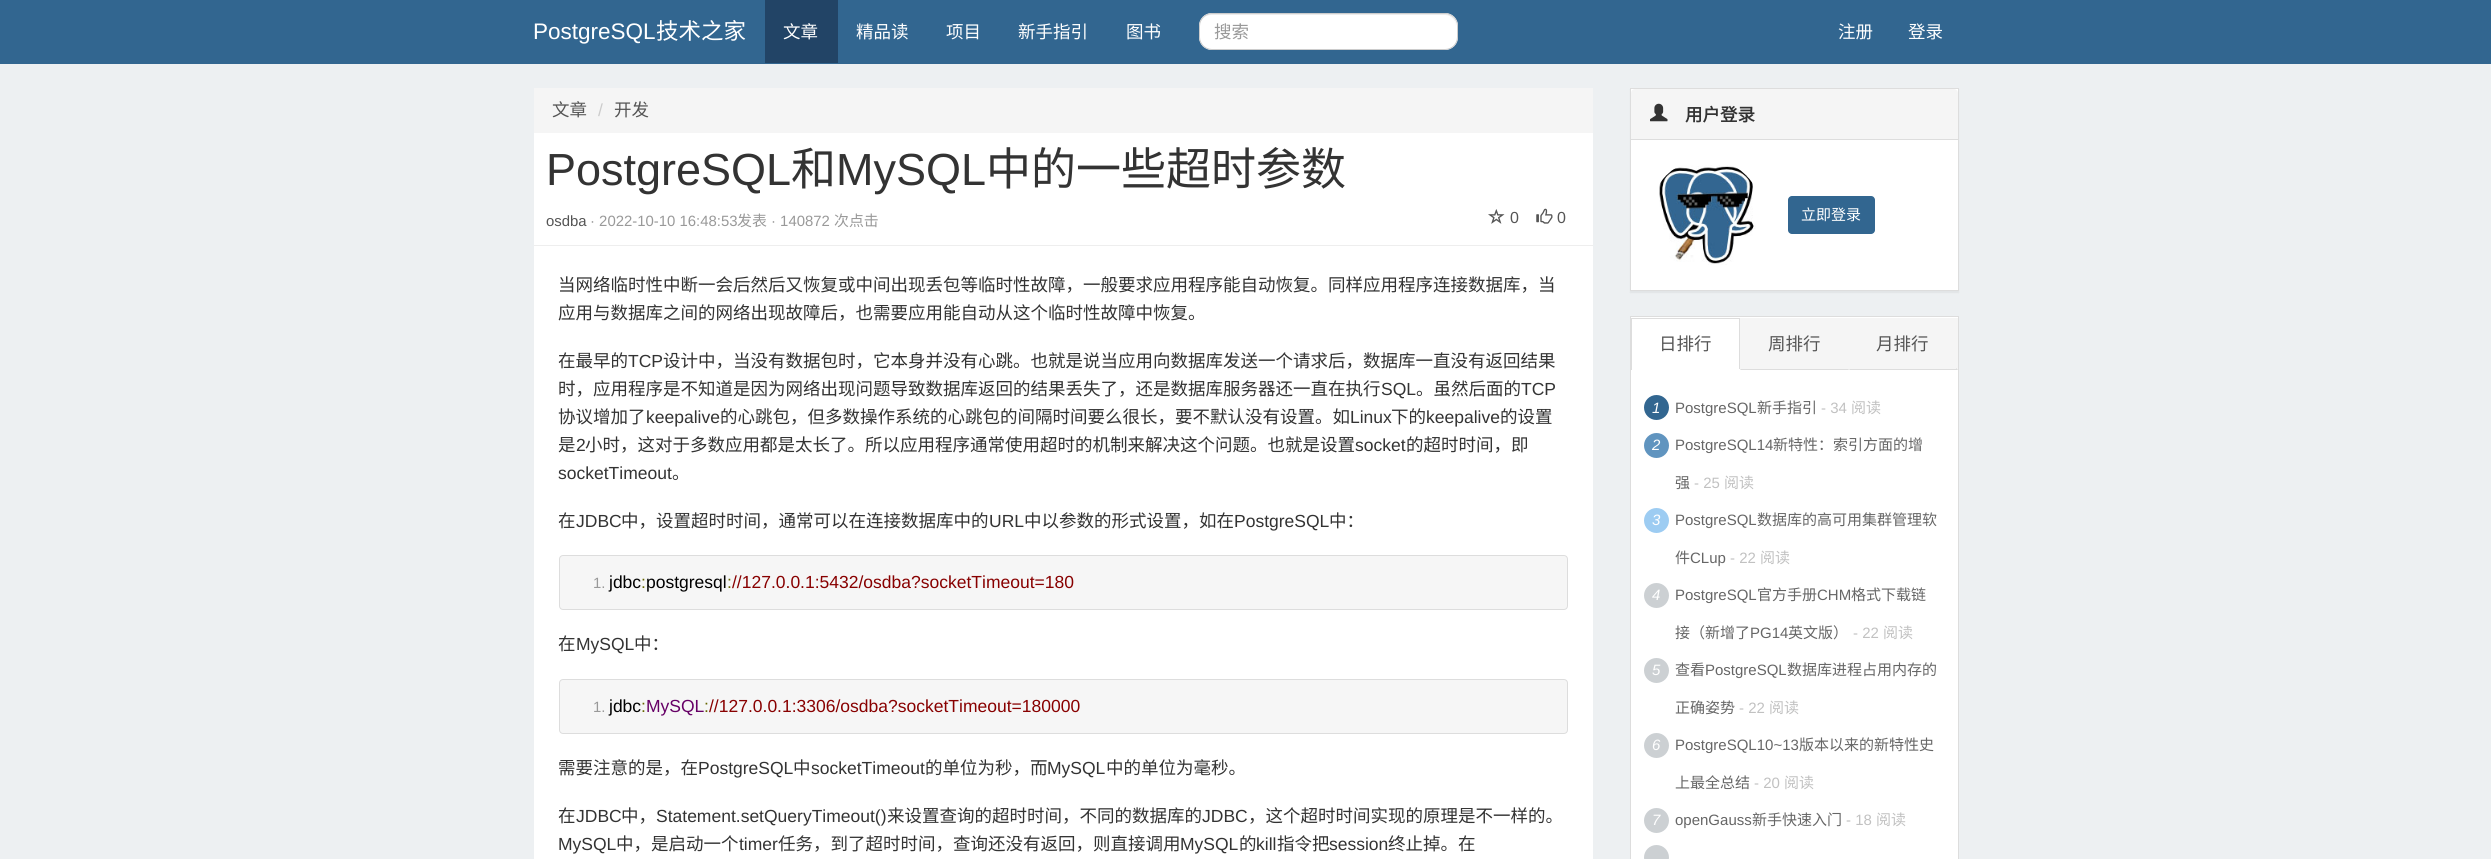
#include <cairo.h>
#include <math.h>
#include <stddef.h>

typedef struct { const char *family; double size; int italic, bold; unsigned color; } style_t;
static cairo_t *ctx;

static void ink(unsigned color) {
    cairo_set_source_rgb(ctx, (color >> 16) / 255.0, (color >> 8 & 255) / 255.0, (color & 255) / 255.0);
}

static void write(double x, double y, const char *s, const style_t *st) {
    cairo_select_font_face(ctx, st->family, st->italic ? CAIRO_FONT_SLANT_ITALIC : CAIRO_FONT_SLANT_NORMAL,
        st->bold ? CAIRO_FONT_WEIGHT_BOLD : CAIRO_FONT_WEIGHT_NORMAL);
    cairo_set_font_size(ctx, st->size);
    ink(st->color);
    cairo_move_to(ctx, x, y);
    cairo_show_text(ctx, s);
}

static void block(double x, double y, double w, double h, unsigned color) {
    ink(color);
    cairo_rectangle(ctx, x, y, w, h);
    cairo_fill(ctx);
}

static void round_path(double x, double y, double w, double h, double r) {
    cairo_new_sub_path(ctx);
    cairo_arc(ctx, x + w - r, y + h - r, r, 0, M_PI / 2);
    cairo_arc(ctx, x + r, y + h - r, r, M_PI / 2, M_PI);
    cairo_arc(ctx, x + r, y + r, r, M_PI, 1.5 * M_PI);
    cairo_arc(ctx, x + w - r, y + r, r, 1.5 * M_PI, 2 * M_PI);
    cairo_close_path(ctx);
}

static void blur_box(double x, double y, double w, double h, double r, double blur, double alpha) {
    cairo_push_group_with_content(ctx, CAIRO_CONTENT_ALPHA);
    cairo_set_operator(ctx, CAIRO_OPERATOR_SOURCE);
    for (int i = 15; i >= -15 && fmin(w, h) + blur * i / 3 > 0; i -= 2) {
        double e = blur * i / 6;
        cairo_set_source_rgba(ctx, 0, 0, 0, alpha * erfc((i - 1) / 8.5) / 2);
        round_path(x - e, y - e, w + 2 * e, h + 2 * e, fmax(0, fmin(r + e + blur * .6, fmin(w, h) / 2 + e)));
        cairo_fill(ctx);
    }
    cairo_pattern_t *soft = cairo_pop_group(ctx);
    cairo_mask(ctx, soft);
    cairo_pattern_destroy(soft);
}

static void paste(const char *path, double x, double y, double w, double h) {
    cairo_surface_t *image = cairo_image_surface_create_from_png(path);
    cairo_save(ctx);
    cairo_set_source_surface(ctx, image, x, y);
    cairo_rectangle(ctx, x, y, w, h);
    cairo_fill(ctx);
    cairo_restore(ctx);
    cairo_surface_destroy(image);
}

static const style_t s1 = {"Liberation Sans", 22.5, 0, 0, 0xffffff};
static const style_t s2 = {"Noto Sans CJK SC", 22.5, 0, 0, 0xffffff};
static const style_t s3 = {"Noto Sans CJK SC", 17.5, 0, 0, 0xffffff};
static const style_t s4 = {"Noto Sans CJK SC", 17.5, 0, 0, 0x999999};
static const style_t s5 = {"Noto Sans CJK SC", 17.5, 0, 0, 0x555555};
static const style_t s6 = {"Liberation Sans", 17.5, 0, 0, 0xcccccc};
static const style_t s7 = {"Liberation Sans", 45, 0, 0, 0x333333};
static const style_t s8 = {"Noto Sans CJK SC", 45, 0, 0, 0x333333};
static const style_t s9 = {"Liberation Sans", 14.9, 0, 0, 0x555555};
static const style_t s10 = {"Liberation Sans", 14.9, 0, 0, 0x999999};
static const style_t s11 = {"Noto Sans CJK SC", 14.9, 0, 0, 0x999999};
static const style_t s12 = {"Liberation Sans", 16, 0, 0, 0x555555};
static const style_t s13 = {"Noto Sans CJK SC", 17.5, 0, 0, 0x333333};
static const style_t s14 = {"Liberation Sans", 17.5, 0, 0, 0x333333};
static const style_t s15 = {"Liberation Sans", 17.5, 0, 0, 0x000000};
static const style_t s16 = {"Liberation Sans", 17.5, 0, 0, 0x880000};
static const style_t s17 = {"Liberation Sans", 17.5, 0, 0, 0x666600};
static const style_t s18 = {"Liberation Sans", 17.5, 0, 0, 0x660066};
static const style_t s19 = {"Noto Sans CJK SC", 17.5, 0, 1, 0x333333};
static const style_t s20 = {"Noto Sans CJK SC", 15, 0, 0, 0xffffff};
static const style_t s21 = {"Liberation Sans", 15, 1, 0, 0xffffff};
static const style_t s22 = {"Liberation Sans", 15, 0, 0, 0x666666};
static const style_t s23 = {"Noto Sans CJK SC", 15, 0, 0, 0x666666};
static const style_t s24 = {"Liberation Sans", 15, 0, 0, 0xc1c1c1};
static const style_t s25 = {"Noto Sans CJK SC", 15, 0, 0, 0xc1c1c1};

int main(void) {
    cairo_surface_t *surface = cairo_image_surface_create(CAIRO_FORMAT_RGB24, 2491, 859);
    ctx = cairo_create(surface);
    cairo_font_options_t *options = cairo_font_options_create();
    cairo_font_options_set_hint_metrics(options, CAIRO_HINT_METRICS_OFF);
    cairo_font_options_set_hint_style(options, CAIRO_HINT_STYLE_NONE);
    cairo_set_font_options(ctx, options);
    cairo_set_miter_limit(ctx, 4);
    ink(0xedf0f2);
    cairo_paint(ctx);
    block(0, 0, 2491, 64, 0x326690);
    write(533, 39, "PostgreSQL", &s1);
    write(656, 39, "技术之家", &s2);
    block(765, 0, 73, 63, 0x224466);
    write(783, 38, "文章", &s3);
    write(856, 38, "精品读", &s3);
    write(946, 38, "项目", &s3);
    write(1018, 38, "新手指引", &s3);
    write(1126, 38, "图书", &s3);
    round_path(1199, 13, 259, 37, 13);
    cairo_fill(ctx);
    ink(0xececec);
    cairo_new_path(ctx);
    cairo_move_to(ctx, 1211, 15);
    cairo_line_to(ctx, 1445, 15);
    cairo_curve_to(ctx, 1451, 15, 1456, 20, 1456, 26);
    cairo_line_to(ctx, 1456, 25);
    cairo_curve_to(ctx, 1456, 19, 1451, 14, 1445, 14);
    cairo_line_to(ctx, 1211, 14);
    cairo_curve_to(ctx, 1205, 14, 1200, 19, 1200, 25);
    cairo_line_to(ctx, 1200, 26);
    cairo_curve_to(ctx, 1200, 20, 1205, 15, 1211, 15);
    cairo_close_path(ctx);
    cairo_fill(ctx);
    round_path(1199.5, 13.5, 258, 36, 12.5);
    ink(0xcccccc);
    cairo_set_line_width(ctx, 1);
    cairo_stroke(ctx);
    write(1214, 38, "搜索", &s4);
    write(1838, 38, "注册", &s3);
    write(1908, 38, "登录", &s3);
    block(534, 88, 1059, 45, 0xf5f5f5);
    write(552, 116, "文章", &s5);
    write(598, 116, "/", &s6);
    write(614, 116, "开发", &s5);
    block(534, 133, 1059, 726, 0xffffff);
    block(534, 245, 1059, 1, 0xeeeeee);
    write(546, 185, "PostgreSQL", &s7);
    write(791, 185, "和", &s8);
    write(836, 185, "MySQL", &s7);
    write(986, 185, "中的一些超时参数", &s8);
    write(546, 226, "osdba", &s9);
    write(590, 226, "· 2022-10-10 16:48:53", &s10);
    write(737, 226, "发表", &s11);
    write(771, 226, "· 140872", &s10);
    write(834, 226, "次点击", &s11);
    paste("pic1.png", 1488, 209, 17, 15);
    write(1510, 223, "0", &s12);
    paste("pic2.png", 1536, 208, 17, 16);
    write(1557, 223, "0", &s12);
    write(558, 291, "当网络临时性中断一会后然后又恢复或中间出现丢包等临时性故障，一般要求应用程序能自动恢复。同样应用程序连接数据库，当", &s13);
    write(558, 319, "应用与数据库之间的网络出现故障后，也需要应用能自动从这个临时性故障中恢复。", &s13);
    write(558, 367, "在最早的", &s13);
    write(628, 367, "TCP", &s14);
    write(663, 367, "设计中，当没有数据包时，它本身并没有心跳。也就是说当应用向数据库发送一个请求后，数据库一直没有返回结果", &s13);
    write(558, 395, "时，应用程序是不知道是因为网络出现问题导致数据库返回的结果丢失了，还是数据库服务器还一直在执行", &s13);
    write(1381, 395, "SQL", &s14);
    write(1416, 395, "。虽然后面的", &s13);
    write(1521, 395, "TCP", &s14);
    write(558, 423, "协议增加了", &s13);
    write(646, 423, "keepalive", &s14);
    write(720, 423, "的心跳包，但多数操作系统的心跳包的间隔时间要么很长，要不默认没有设置。如", &s13);
    write(1350, 423, "Linux", &s14);
    write(1391, 423, "下的", &s13);
    write(1426, 423, "keepalive", &s14);
    write(1500, 423, "的设置", &s13);
    write(558, 451, "是", &s13);
    write(576, 451, "2", &s14);
    write(585, 451, "小时，这对于多数应用都是太长了。所以应用程序通常使用超时的机制来解决这个问题。也就是设置", &s13);
    write(1355, 451, "socket", &s14);
    write(1406, 451, "的超时时间，即", &s13);
    write(558, 479, "socketTimeout", &s14);
    write(672, 479, "。", &s13);
    write(558, 527, "在", &s13);
    write(576, 527, "JDBC", &s14);
    write(621, 527, "中，设置超时时间，通常可以在连接数据库中的", &s13);
    write(989, 527, "URL", &s14);
    write(1024, 527, "中以参数的形式设置，如在", &s13);
    write(1234, 527, "PostgreSQL", &s14);
    write(1329, 527, "中：", &s13);
    ink(0xf6f6f6);
    round_path(559.5, 555.5, 1008, 54, 3.5);
    cairo_fill_preserve(ctx);
    ink(0xdddddd);
    cairo_stroke(ctx);
    write(593, 588, "1.", &s10);
    write(609, 588, "jdbc postgresql", &s15);
    write(732, 588, "//127.0.0.1:5432/osdba?socketTimeout=180", &s16);
    write(641, 588, ":", &s17);
    write(727, 588, ":", &s17);
    write(558, 650, "在", &s13);
    write(576, 650, "MySQL", &s14);
    write(634, 650, "中：", &s13);
    ink(0xf6f6f6);
    round_path(559.5, 679.5, 1008, 54, 3.5);
    cairo_fill_preserve(ctx);
    ink(0xdddddd);
    cairo_stroke(ctx);
    write(593, 712, "1.", &s10);
    write(609, 712, "jdbc", &s15);
    write(641, 712, ":", &s17);
    write(646, 712, "MySQL", &s18);
    write(704, 712, ":", &s17);
    write(709, 712, "//127.0.0.1:3306/osdba?socketTimeout=180000", &s16);
    write(558, 774, "需要注意的是，在", &s13);
    write(698, 774, "PostgreSQL", &s14);
    write(793, 774, "中", &s13);
    write(811, 774, "socketTimeout", &s14);
    write(925, 774, "的单位为秒，而", &s13);
    write(1047, 774, "MySQL", &s14);
    write(1106, 774, "中的单位为毫秒。", &s13);
    write(558, 822, "在", &s13);
    write(576, 822, "JDBC", &s14);
    write(621, 822, "中，", &s13);
    write(656, 822, "Statement.setQueryTimeout()", &s14);
    write(887, 822, "来设置查询的超时时间，不同的数据库的", &s13);
    write(1202, 822, "JDBC", &s14);
    write(1248, 822, "，这个超时时间实现的原理是不一样的。", &s13);
    write(558, 850, "MySQL", &s14);
    write(616, 850, "中，是启动一个", &s13);
    write(739, 850, "timer", &s14);
    write(778, 850, "任务，到了超时时间，查询还没有返回，则直接调用", &s13);
    write(1180, 850, "MySQL", &s14);
    write(1239, 850, "的", &s13);
    write(1256, 850, "kill", &s14);
    write(1277, 850, "指令把", &s13);
    write(1329, 850, "session", &s14);
    write(1388, 850, "终止掉。在", &s13);
    ink(0x000000);
    blur_box(1630, 89, 329, 204, 0, 0.5, 0.05);
    ink(0xffffff);
    cairo_rectangle(ctx, 1630.5, 88.5, 328, 202);
    cairo_fill_preserve(ctx);
    ink(0xdddddd);
    cairo_stroke(ctx);
    ink(0xf5f5f5);
    cairo_new_path(ctx);
    cairo_move_to(ctx, 1635, 89);
    cairo_line_to(ctx, 1954, 89);
    cairo_curve_to(ctx, 1956, 89, 1958, 91, 1958, 93);
    cairo_line_to(ctx, 1958, 140);
    cairo_line_to(ctx, 1631, 140);
    cairo_line_to(ctx, 1631, 93);
    cairo_curve_to(ctx, 1631, 91, 1633, 89, 1635, 89);
    cairo_close_path(ctx);
    cairo_fill(ctx);
    block(1631, 139, 327, 1, 0xdddddd);
    paste("pic3.png", 1650, 103, 18, 19);
    write(1685, 121, "用户登录", &s19);
    paste("pic4.png", 1659, 165, 97, 100);
    ink(0x326690);
    round_path(1788, 196, 87, 38, 4);
    cairo_fill(ctx);
    write(1801, 220, "立即登录", &s20);
    cairo_rectangle(ctx, 1630.5, 316.5, 328, 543);
    cairo_fill_preserve(ctx);
    ink(0xdddddd);
    cairo_stroke(ctx);
    block(1740, 318, 218, 52, 0xf5f5f5);
    block(1631, 318, 109, 1, 0xdddddd);
    block(1739, 318, 1, 52, 0xdddddd);
    block(1739, 369, 1, 1, 0xffffff);
    block(1631, 318, 1, 52, 0xdddddd);
    write(1659, 350, "日排行", &s5);
    ink(0xdddddd);
    cairo_new_path(ctx);
    cairo_move_to(ctx, 1849, 370);
    cairo_line_to(ctx, 1848, 369);
    cairo_line_to(ctx, 1741, 369);
    cairo_line_to(ctx, 1740, 370);
    cairo_close_path(ctx);
    cairo_fill(ctx);
    write(1768, 350, "周排行", &s5);
    ink(0xdddddd);
    cairo_new_path(ctx);
    cairo_move_to(ctx, 1958, 370);
    cairo_line_to(ctx, 1956, 368);
    cairo_line_to(ctx, 1956, 369);
    cairo_line_to(ctx, 1850, 369);
    cairo_line_to(ctx, 1849, 370);
    cairo_close_path(ctx);
    cairo_fill(ctx);
    write(1876, 350, "月排行", &s5);
    ink(0x326690);
    cairo_new_path(ctx);
    cairo_arc(ctx, 1656.5, 407.5, 12.5, 0, 2 * M_PI);
    cairo_fill(ctx);
    write(1652, 413, "1", &s21);
    write(1675, 413, "PostgreSQL", &s22);
    write(1757, 413, "新手指引", &s23);
    write(1821, 413, "- 34", &s24);
    write(1851, 413, "阅读", &s25);
    ink(0x6094bf);
    cairo_new_path(ctx);
    cairo_arc(ctx, 1656.5, 445.5, 12.5, 0, 2 * M_PI);
    cairo_fill(ctx);
    write(1652, 450, "2", &s21);
    write(1675, 450, "PostgreSQL14", &s22);
    write(1773, 450, "新特性：索引方面的增", &s23);
    write(1675, 488, "强", &s23);
    write(1694, 488, "- 25", &s24);
    write(1724, 488, "阅读", &s25);
    ink(0x9dccf2);
    cairo_new_path(ctx);
    cairo_arc(ctx, 1656.5, 520.5, 12.5, 0, 2 * M_PI);
    cairo_fill(ctx);
    write(1652, 525, "3", &s21);
    write(1675, 525, "PostgreSQL", &s22);
    write(1757, 525, "数据库的高可用集群管理软", &s23);
    write(1675, 563, "件", &s23);
    write(1690, 563, "CLup", &s22);
    write(1730, 563, "- 22", &s24);
    write(1760, 563, "阅读", &s25);
    ink(0xccd0d3);
    cairo_new_path(ctx);
    cairo_arc(ctx, 1656.5, 595.5, 12.5, 0, 2 * M_PI);
    cairo_fill(ctx);
    write(1652, 600, "4", &s21);
    write(1675, 600, "PostgreSQL", &s22);
    write(1757, 600, "官方手册", &s23);
    write(1817, 600, "CHM", &s22);
    write(1851, 600, "格式下载链", &s23);
    write(1675, 638, "接（新增了", &s23);
    write(1750, 638, "PG14", &s22);
    write(1788, 638, "英文版）", &s23);
    write(1853, 638, "- 22", &s24);
    write(1883, 638, "阅读", &s25);
    ink(0xccd0d3);
    cairo_new_path(ctx);
    cairo_arc(ctx, 1656.5, 670.5, 12.5, 0, 2 * M_PI);
    cairo_fill(ctx);
    write(1652, 675, "5", &s21);
    write(1675, 675, "查看", &s23);
    write(1705, 675, "PostgreSQL", &s22);
    write(1787, 675, "数据库进程占用内存的", &s23);
    write(1675, 713, "正确姿势", &s23);
    write(1739, 713, "- 22", &s24);
    write(1769, 713, "阅读", &s25);
    ink(0xccd0d3);
    cairo_new_path(ctx);
    cairo_arc(ctx, 1656.5, 745.5, 12.5, 0, 2 * M_PI);
    cairo_fill(ctx);
    write(1652, 750, "6", &s21);
    write(1675, 750, "PostgreSQL10~13", &s22);
    write(1799, 750, "版本以来的新特性史", &s23);
    write(1675, 788, "上最全总结", &s23);
    write(1754, 788, "- 20", &s24);
    write(1784, 788, "阅读", &s25);
    ink(0xccd0d3);
    cairo_new_path(ctx);
    cairo_arc(ctx, 1656.5, 820.5, 12.5, 0, 2 * M_PI);
    cairo_fill(ctx);
    write(1652, 825, "7", &s21);
    write(1675, 825, "openGauss", &s22);
    write(1752, 825, "新手快速入门", &s23);
    write(1846, 825, "- 18", &s24);
    write(1876, 825, "阅读", &s25);
    ink(0xccd0d3);
    cairo_new_path(ctx);
    cairo_arc(ctx, 1656.5, 857.5, 12.5, 0, 2 * M_PI);
    cairo_fill(ctx);
    cairo_surface_write_to_png(surface, "screenshot.png");
    cairo_font_options_destroy(options);
    cairo_destroy(ctx);
    cairo_surface_destroy(surface);
    return 0;
}
